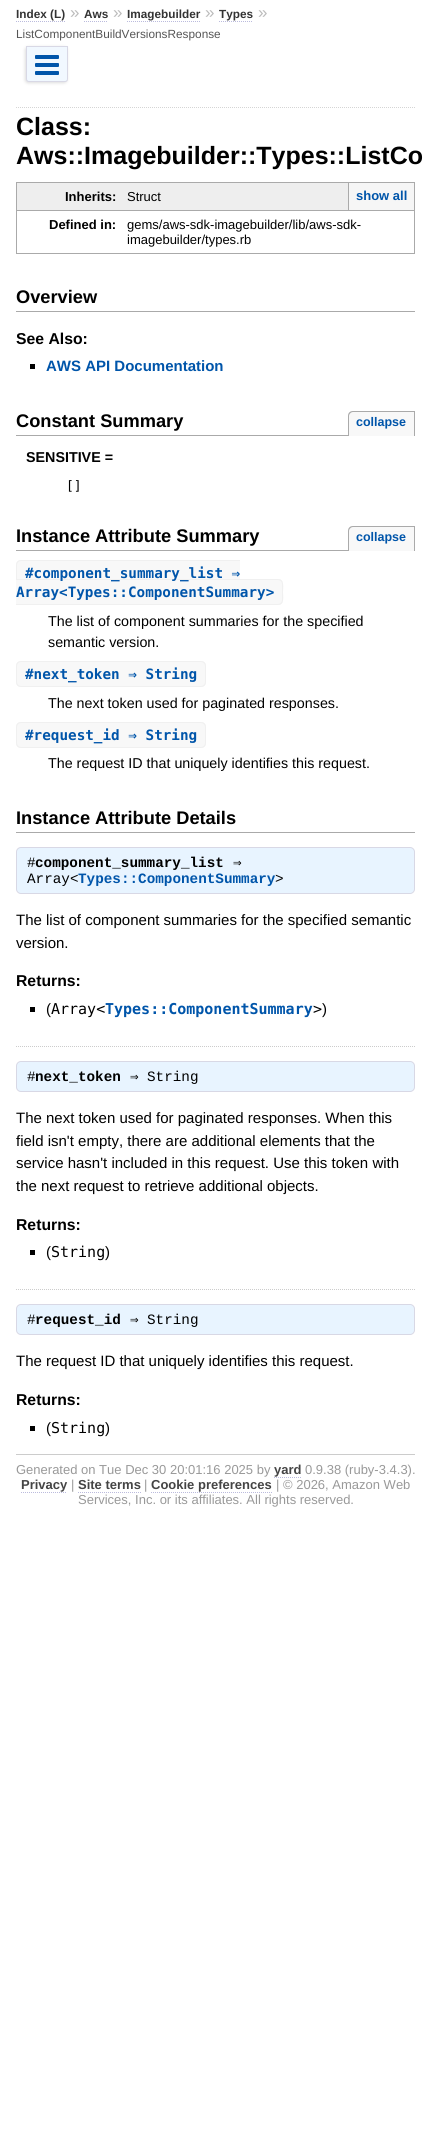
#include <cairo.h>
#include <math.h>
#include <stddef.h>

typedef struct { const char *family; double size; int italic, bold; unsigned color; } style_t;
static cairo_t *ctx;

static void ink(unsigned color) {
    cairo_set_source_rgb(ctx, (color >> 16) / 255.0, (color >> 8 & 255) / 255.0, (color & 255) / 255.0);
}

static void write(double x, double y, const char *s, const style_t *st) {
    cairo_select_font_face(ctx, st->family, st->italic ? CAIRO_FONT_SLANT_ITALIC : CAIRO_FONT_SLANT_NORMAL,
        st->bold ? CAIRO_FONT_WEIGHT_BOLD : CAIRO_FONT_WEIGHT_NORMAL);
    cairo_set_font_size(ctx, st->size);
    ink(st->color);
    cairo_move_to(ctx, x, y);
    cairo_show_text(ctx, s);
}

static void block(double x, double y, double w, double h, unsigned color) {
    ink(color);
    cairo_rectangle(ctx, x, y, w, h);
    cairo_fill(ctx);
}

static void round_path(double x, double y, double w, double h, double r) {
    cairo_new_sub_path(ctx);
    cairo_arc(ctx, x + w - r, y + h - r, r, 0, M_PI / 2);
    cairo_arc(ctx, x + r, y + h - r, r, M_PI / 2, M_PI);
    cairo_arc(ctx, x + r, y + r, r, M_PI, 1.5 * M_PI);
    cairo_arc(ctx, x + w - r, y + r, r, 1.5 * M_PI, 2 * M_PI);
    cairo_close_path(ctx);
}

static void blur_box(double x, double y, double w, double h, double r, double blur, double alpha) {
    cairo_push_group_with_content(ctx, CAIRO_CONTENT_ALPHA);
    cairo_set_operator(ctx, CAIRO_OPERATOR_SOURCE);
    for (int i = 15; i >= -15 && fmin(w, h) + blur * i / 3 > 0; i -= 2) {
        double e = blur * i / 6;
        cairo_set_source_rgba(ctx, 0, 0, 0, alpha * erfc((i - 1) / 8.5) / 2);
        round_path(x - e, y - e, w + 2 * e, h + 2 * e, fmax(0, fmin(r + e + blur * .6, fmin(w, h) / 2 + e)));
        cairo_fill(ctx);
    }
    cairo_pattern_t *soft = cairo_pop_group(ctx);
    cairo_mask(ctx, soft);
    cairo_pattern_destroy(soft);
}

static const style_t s1 = {"Liberation Sans", 11.8, 0, 1, 0x333333};
static const style_t s2 = {"Liberation Sans", 17, 0, 0, 0xbbbbbb};
static const style_t s3 = {"Liberation Sans", 11.8, 0, 0, 0x555555};
static const style_t s4 = {"Liberation Sans", 25, 0, 1, 0x000000};
static const style_t s5 = {"Liberation Sans", 13, 0, 1, 0x000000};
static const style_t s6 = {"Liberation Sans", 13, 0, 0, 0x000000};
static const style_t s7 = {"Liberation Sans", 13, 0, 1, 0x0055aa};
static const style_t s8 = {"Liberation Sans", 18.25, 0, 1, 0x000000};
static const style_t s9 = {"Liberation Sans", 15.75, 0, 1, 0x000000};
static const style_t s10 = {"Liberation Sans", 15, 0, 1, 0x0055aa};
static const style_t s11 = {"Liberation Sans", 12.5, 0, 1, 0x0055aa};
static const style_t s12 = {"Liberation Sans", 14.3, 0, 1, 0x000000};
static const style_t s13 = {"DejaVu Sans Mono", 13, 0, 0, 0x000000};
static const style_t s14 = {"DejaVu Sans Mono", 14.3, 0, 1, 0x0055aa};
static const style_t s15 = {"Liberation Sans", 14.3, 0, 0, 0x000000};
static const style_t s16 = {"Liberation Mono", 14.3, 0, 0, 0x000000};
static const style_t s17 = {"Liberation Mono", 14.3, 0, 1, 0x000000};
static const style_t s18 = {"DejaVu Sans Mono", 14.3, 0, 0, 0x000000};
static const style_t s19 = {"Liberation Mono", 14.3, 0, 1, 0x0055aa};
static const style_t s20 = {"Liberation Sans", 15, 0, 0, 0x000000};
static const style_t s21 = {"DejaVu Sans Mono", 15, 0, 0, 0x000000};
static const style_t s22 = {"DejaVu Sans Mono", 15, 0, 1, 0x0055aa};
static const style_t s23 = {"Liberation Sans", 13, 0, 0, 0x999999};
static const style_t s24 = {"Liberation Sans", 13, 0, 1, 0x444444};

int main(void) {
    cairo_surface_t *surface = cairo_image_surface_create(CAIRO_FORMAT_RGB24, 431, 2135);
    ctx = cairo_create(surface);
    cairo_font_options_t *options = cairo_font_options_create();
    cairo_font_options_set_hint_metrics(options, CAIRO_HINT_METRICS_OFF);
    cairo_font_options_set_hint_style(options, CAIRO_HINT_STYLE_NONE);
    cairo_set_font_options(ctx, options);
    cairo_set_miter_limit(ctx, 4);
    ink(0xffffff);
    cairo_paint(ctx);
    write(16, 18, "Index (L)", &s1);
    cairo_new_path(ctx);
    cairo_move_to(ctx, 16, 21.5);
    cairo_line_to(ctx, 65, 21.5);
    ink(0xbbbbdd);
    cairo_set_line_width(ctx, 1);
    cairo_set_dash(ctx, (double[]){1, 1}, 2, 0);
    cairo_stroke(ctx);
    write(70, 18, "»", &s2);
    write(84, 18, "Aws", &s1);
    cairo_new_path(ctx);
    cairo_move_to(ctx, 84, 21.5);
    cairo_line_to(ctx, 108, 21.5);
    ink(0xbbbbdd);
    cairo_stroke(ctx);
    write(113, 18, "»", &s2);
    write(127, 18, "Imagebuilder", &s1);
    cairo_new_path(ctx);
    cairo_move_to(ctx, 127, 21.5);
    cairo_line_to(ctx, 200, 21.5);
    ink(0xbbbbdd);
    cairo_stroke(ctx);
    write(205, 18, "»", &s2);
    write(219, 18, "Types", &s1);
    cairo_new_path(ctx);
    cairo_move_to(ctx, 219, 21.5);
    cairo_line_to(ctx, 253, 21.5);
    ink(0xbbbbdd);
    cairo_stroke(ctx);
    write(258, 18, "»", &s2);
    write(16, 38, "ListComponentBuildVersionsResponse", &s3);
    ink(0xdddddd);
    blur_box(25, 47, 42, 36, 3, 1.5, 1);
    ink(0xf1f8ff);
    cairo_new_path(ctx);
    cairo_move_to(ctx, 26.5, 46.5);
    cairo_line_to(ctx, 67.5, 46.5);
    cairo_line_to(ctx, 67.5, 79);
    cairo_curve_to(ctx, 67.5, 80.5, 66.5, 81.5, 65, 81.5);
    cairo_line_to(ctx, 29, 81.5);
    cairo_curve_to(ctx, 27.5, 81.5, 26.5, 80.5, 26.5, 79);
    cairo_close_path(ctx);
    cairo_fill_preserve(ctx);
    ink(0xd8d8e5);
    cairo_set_dash(ctx, NULL, 0, 0);
    cairo_stroke(ctx);
    ink(0x0055aa);
    round_path(35, 55, 24, 4, 1);
    cairo_fill(ctx);
    round_path(35, 63, 24, 4, 1);
    cairo_fill(ctx);
    round_path(35, 71, 24, 4, 1);
    cairo_fill(ctx);
    cairo_new_path(ctx);
    cairo_move_to(ctx, 16, 107.5);
    cairo_line_to(ctx, 415, 107.5);
    ink(0xd5d5d5);
    cairo_set_dash(ctx, (double[]){1, 1}, 2, 0);
    cairo_stroke(ctx);
    write(16, 135, "Class:", &s4);
    write(16, 164, "Aws::Imagebuilder::Types::ListCo", &s4);
    block(17, 183, 331, 27, 0xeeeeee);
    block(16, 182, 399, 1, 0xaaaaaa);
    block(16, 182, 1, 28, 0xaaaaaa);
    write(65, 201, "Inherits:", &s5);
    block(16, 210, 399, 1, 0xaaaaaa);
    block(414, 182, 1, 72, 0xaaaaaa);
    write(127, 201, "Struct", &s6);
    block(349, 183, 65, 27, 0xf6f6f6);
    block(348, 183, 1, 27, 0xaaaaaa);
    write(356, 200, "show all", &s7);
    block(16, 253, 111, 1, 0xaaaaaa);
    block(16, 210, 1, 44, 0xaaaaaa);
    write(49, 229, "Defined in:", &s5);
    block(127, 253, 288, 1, 0xaaaaaa);
    write(127, 229, "gems/aws-sdk-imagebuilder/lib/aws-sdk-", &s6);
    write(127, 244, "imagebuilder/types.rb", &s6);
    block(16, 311, 399, 1, 0xaaaaaa);
    write(16, 303, "Overview", &s8);
    write(16, 344, "See Also:", &s9);
    block(30, 364, 5, 5, 0x000000);
    write(46, 371, "AWS API Documentation", &s10);
    block(16, 435, 332, 1, 0xaaaaaa);
    write(16, 427, "Constant Summary", &s8);
    ink(0xf8f8f8);
    cairo_new_path(ctx);
    cairo_move_to(ctx, 353, 411);
    cairo_line_to(ctx, 415, 411);
    cairo_line_to(ctx, 415, 436);
    cairo_line_to(ctx, 348, 436);
    cairo_line_to(ctx, 348, 416);
    cairo_curve_to(ctx, 348, 413, 350, 411, 353, 411);
    cairo_close_path(ctx);
    cairo_fill(ctx);
    ink(0xaaaaaa);
    cairo_set_fill_rule(ctx, CAIRO_FILL_RULE_EVEN_ODD);
    cairo_new_path(ctx);
    cairo_move_to(ctx, 353, 411);
    cairo_line_to(ctx, 415, 411);
    cairo_line_to(ctx, 415, 436);
    cairo_line_to(ctx, 348, 436);
    cairo_line_to(ctx, 348, 416);
    cairo_curve_to(ctx, 348, 413, 350, 411, 353, 411);
    cairo_close_path(ctx);
    cairo_move_to(ctx, 353, 412);
    cairo_line_to(ctx, 414, 412);
    cairo_line_to(ctx, 414, 436);
    cairo_line_to(ctx, 349, 436);
    cairo_line_to(ctx, 349, 416);
    cairo_curve_to(ctx, 349, 414, 351, 412, 353, 412);
    cairo_close_path(ctx);
    cairo_fill(ctx);
    write(356, 426, "collapse", &s11);
    write(26, 462, "SENSITIVE =", &s12);
    write(66, 490, "[]", &s13);
    block(16, 550, 332, 1, 0xaaaaaa);
    write(16, 542, "Instance Attribute Summary", &s8);
    ink(0xf8f8f8);
    cairo_new_path(ctx);
    cairo_move_to(ctx, 353, 526);
    cairo_line_to(ctx, 415, 526);
    cairo_line_to(ctx, 415, 551);
    cairo_line_to(ctx, 348, 551);
    cairo_line_to(ctx, 348, 531);
    cairo_curve_to(ctx, 348, 528, 350, 526, 353, 526);
    cairo_close_path(ctx);
    cairo_fill(ctx);
    ink(0xaaaaaa);
    cairo_new_path(ctx);
    cairo_move_to(ctx, 353, 526);
    cairo_line_to(ctx, 415, 526);
    cairo_line_to(ctx, 415, 551);
    cairo_line_to(ctx, 348, 551);
    cairo_line_to(ctx, 348, 531);
    cairo_curve_to(ctx, 348, 528, 350, 526, 353, 526);
    cairo_close_path(ctx);
    cairo_move_to(ctx, 353, 527);
    cairo_line_to(ctx, 414, 527);
    cairo_line_to(ctx, 414, 551);
    cairo_line_to(ctx, 349, 551);
    cairo_line_to(ctx, 349, 531);
    cairo_curve_to(ctx, 349, 529, 351, 527, 353, 527);
    cairo_close_path(ctx);
    cairo_fill(ctx);
    write(356, 541, "collapse", &s11);
    ink(0xf8f8f8);
    cairo_new_path(ctx);
    cairo_move_to(ctx, 21, 560);
    cairo_line_to(ctx, 33, 560);
    cairo_line_to(ctx, 33, 586);
    cairo_line_to(ctx, 21, 586);
    cairo_curve_to(ctx, 18, 586, 16, 584, 16, 581);
    cairo_line_to(ctx, 16, 565);
    cairo_curve_to(ctx, 16, 562, 18, 560, 21, 560);
    cairo_close_path(ctx);
    cairo_fill(ctx);
    ink(0xf0f0f0);
    cairo_new_path(ctx);
    cairo_move_to(ctx, 21, 560);
    cairo_line_to(ctx, 33, 560);
    cairo_line_to(ctx, 33, 586);
    cairo_line_to(ctx, 21, 586);
    cairo_curve_to(ctx, 18, 586, 16, 584, 16, 581);
    cairo_line_to(ctx, 16, 565);
    cairo_curve_to(ctx, 16, 562, 18, 560, 21, 560);
    cairo_close_path(ctx);
    cairo_move_to(ctx, 21, 561);
    cairo_line_to(ctx, 33, 561);
    cairo_line_to(ctx, 33, 585);
    cairo_line_to(ctx, 21, 585);
    cairo_curve_to(ctx, 19, 585, 17, 583, 17, 581);
    cairo_line_to(ctx, 17, 565);
    cairo_curve_to(ctx, 17, 563, 19, 561, 21, 561);
    cairo_close_path(ctx);
    cairo_fill(ctx);
    block(33, 561, 207, 18, 0xf8f8f8);
    cairo_new_path(ctx);
    cairo_move_to(ctx, 16, 579);
    cairo_line_to(ctx, 278, 579);
    cairo_curve_to(ctx, 281, 579, 283, 581, 283, 584);
    cairo_line_to(ctx, 283, 600);
    cairo_curve_to(ctx, 283, 603, 281, 605, 278, 605);
    cairo_line_to(ctx, 16, 605);
    cairo_close_path(ctx);
    cairo_fill(ctx);
    ink(0xf0f0f0);
    cairo_new_path(ctx);
    cairo_move_to(ctx, 16, 579);
    cairo_line_to(ctx, 278, 579);
    cairo_curve_to(ctx, 285, 579, 283, 588, 283, 592);
    cairo_curve_to(ctx, 283, 596, 285, 605, 278, 605);
    cairo_line_to(ctx, 16, 605);
    cairo_close_path(ctx);
    cairo_move_to(ctx, 16, 580);
    cairo_line_to(ctx, 278, 580);
    cairo_curve_to(ctx, 280, 580, 282, 582, 282, 584);
    cairo_line_to(ctx, 282, 600);
    cairo_curve_to(ctx, 282, 602, 280, 604, 278, 604);
    cairo_line_to(ctx, 16, 604);
    cairo_close_path(ctx);
    cairo_fill(ctx);
    write(25, 578, "#component_summary_list ⇒", &s14);
    block(33, 560, 207, 1, 0xf0f0f0);
    write(16, 597, "Array<Types::ComponentSummary>", &s14);
    write(48, 626, "The list of component summaries for the specified", &s15);
    write(48, 647, "semantic version.", &s15);
    ink(0xf8f8f8);
    cairo_new_path(ctx);
    cairo_move_to(ctx, 21, 661);
    cairo_line_to(ctx, 33, 661);
    cairo_line_to(ctx, 33, 687);
    cairo_line_to(ctx, 21, 687);
    cairo_curve_to(ctx, 18, 687, 16, 685, 16, 682);
    cairo_line_to(ctx, 16, 666);
    cairo_curve_to(ctx, 16, 663, 18, 661, 21, 661);
    cairo_close_path(ctx);
    cairo_fill(ctx);
    ink(0xf0f0f0);
    cairo_new_path(ctx);
    cairo_move_to(ctx, 21, 661);
    cairo_line_to(ctx, 33, 661);
    cairo_line_to(ctx, 33, 687);
    cairo_line_to(ctx, 21, 687);
    cairo_curve_to(ctx, 18, 687, 16, 685, 16, 682);
    cairo_line_to(ctx, 16, 666);
    cairo_curve_to(ctx, 16, 663, 18, 661, 21, 661);
    cairo_close_path(ctx);
    cairo_move_to(ctx, 21, 662);
    cairo_line_to(ctx, 33, 662);
    cairo_line_to(ctx, 33, 686);
    cairo_line_to(ctx, 21, 686);
    cairo_curve_to(ctx, 19, 686, 17, 684, 17, 682);
    cairo_line_to(ctx, 17, 666);
    cairo_curve_to(ctx, 17, 664, 19, 662, 21, 662);
    cairo_close_path(ctx);
    cairo_fill(ctx);
    block(33, 662, 86, 24, 0xf8f8f8);
    cairo_new_path(ctx);
    cairo_move_to(ctx, 119, 661);
    cairo_line_to(ctx, 201, 661);
    cairo_curve_to(ctx, 204, 661, 206, 663, 206, 666);
    cairo_line_to(ctx, 206, 682);
    cairo_curve_to(ctx, 206, 685, 204, 687, 201, 687);
    cairo_line_to(ctx, 119, 687);
    cairo_close_path(ctx);
    cairo_fill(ctx);
    ink(0xf0f0f0);
    cairo_new_path(ctx);
    cairo_move_to(ctx, 119, 661);
    cairo_line_to(ctx, 201, 661);
    cairo_curve_to(ctx, 204, 661, 206, 663, 206, 666);
    cairo_line_to(ctx, 206, 682);
    cairo_curve_to(ctx, 206, 685, 204, 687, 201, 687);
    cairo_line_to(ctx, 119, 687);
    cairo_close_path(ctx);
    cairo_move_to(ctx, 119, 662);
    cairo_line_to(ctx, 201, 662);
    cairo_curve_to(ctx, 203, 662, 205, 664, 205, 666);
    cairo_line_to(ctx, 205, 682);
    cairo_curve_to(ctx, 205, 684, 203, 686, 201, 686);
    cairo_line_to(ctx, 119, 686);
    cairo_close_path(ctx);
    cairo_fill(ctx);
    write(25, 679, "#next_token ⇒ String", &s14);
    block(33, 661, 86, 1, 0xf0f0f0);
    block(33, 686, 86, 1, 0xf0f0f0);
    write(48, 708, "The next token used for paginated responses.", &s15);
    ink(0xf8f8f8);
    cairo_new_path(ctx);
    cairo_move_to(ctx, 21, 722);
    cairo_line_to(ctx, 33, 722);
    cairo_line_to(ctx, 33, 748);
    cairo_line_to(ctx, 21, 748);
    cairo_curve_to(ctx, 18, 748, 16, 746, 16, 743);
    cairo_line_to(ctx, 16, 727);
    cairo_curve_to(ctx, 16, 724, 18, 722, 21, 722);
    cairo_close_path(ctx);
    cairo_fill(ctx);
    ink(0xf0f0f0);
    cairo_new_path(ctx);
    cairo_move_to(ctx, 21, 722);
    cairo_line_to(ctx, 33, 722);
    cairo_line_to(ctx, 33, 748);
    cairo_line_to(ctx, 21, 748);
    cairo_curve_to(ctx, 18, 748, 16, 746, 16, 743);
    cairo_line_to(ctx, 16, 727);
    cairo_curve_to(ctx, 16, 724, 18, 722, 21, 722);
    cairo_close_path(ctx);
    cairo_move_to(ctx, 21, 723);
    cairo_line_to(ctx, 33, 723);
    cairo_line_to(ctx, 33, 747);
    cairo_line_to(ctx, 21, 747);
    cairo_curve_to(ctx, 19, 747, 17, 745, 17, 743);
    cairo_line_to(ctx, 17, 727);
    cairo_curve_to(ctx, 17, 725, 19, 723, 21, 723);
    cairo_close_path(ctx);
    cairo_fill(ctx);
    block(33, 723, 86, 24, 0xf8f8f8);
    cairo_new_path(ctx);
    cairo_move_to(ctx, 119, 722);
    cairo_line_to(ctx, 201, 722);
    cairo_curve_to(ctx, 204, 722, 206, 724, 206, 727);
    cairo_line_to(ctx, 206, 743);
    cairo_curve_to(ctx, 206, 746, 204, 748, 201, 748);
    cairo_line_to(ctx, 119, 748);
    cairo_close_path(ctx);
    cairo_fill(ctx);
    ink(0xf0f0f0);
    cairo_new_path(ctx);
    cairo_move_to(ctx, 119, 722);
    cairo_line_to(ctx, 201, 722);
    cairo_curve_to(ctx, 204, 722, 206, 724, 206, 727);
    cairo_line_to(ctx, 206, 743);
    cairo_curve_to(ctx, 206, 746, 204, 748, 201, 748);
    cairo_line_to(ctx, 119, 748);
    cairo_close_path(ctx);
    cairo_move_to(ctx, 119, 723);
    cairo_line_to(ctx, 201, 723);
    cairo_curve_to(ctx, 203, 723, 205, 725, 205, 727);
    cairo_line_to(ctx, 205, 743);
    cairo_curve_to(ctx, 205, 745, 203, 747, 201, 747);
    cairo_line_to(ctx, 119, 747);
    cairo_close_path(ctx);
    cairo_fill(ctx);
    write(25, 740, "#request_id ⇒ String", &s14);
    block(33, 722, 86, 1, 0xf0f0f0);
    block(33, 747, 86, 1, 0xf0f0f0);
    write(48, 768, "The request ID that uniquely identifies this request.", &s15);
    block(16, 832, 399, 1, 0xaaaaaa);
    write(16, 824, "Instance Attribute Details", &s8);
    ink(0xe8f4ff);
    round_path(16.5, 847.5, 398, 46, 4.5);
    cairo_fill_preserve(ctx);
    ink(0xd8d8e5);
    cairo_set_dash(ctx, NULL, 0, 0);
    cairo_stroke(ctx);
    write(27, 867, "#", &s16);
    write(35, 867, "component_summary_list", &s17);
    write(233, 867, "⇒", &s18);
    write(27, 883, "Array<", &s16);
    write(78, 883, "Types::ComponentSummary", &s19);
    write(275, 883, ">", &s16);
    write(16, 925, "The list of component summaries for the specified semantic", &s20);
    write(16, 948, "version.", &s20);
    write(16, 986, "Returns:", &s9);
    block(30, 1007, 5, 5, 0x000000);
    write(46, 1014, "(", &s20);
    write(51, 1014, "Array<", &s21);
    write(105, 1014, "Types::ComponentSummary", &s22);
    write(313, 1014, ">", &s21);
    write(322, 1014, ")", &s20);
    cairo_new_path(ctx);
    cairo_move_to(ctx, 16, 1046.5);
    cairo_line_to(ctx, 415, 1046.5);
    ink(0xcccccc);
    cairo_set_dash(ctx, (double[]){1, 1}, 2, 0);
    cairo_stroke(ctx);
    ink(0xe8f4ff);
    round_path(16.5, 1061.5, 398, 30, 4.5);
    cairo_fill_preserve(ctx);
    ink(0xd8d8e5);
    cairo_set_dash(ctx, NULL, 0, 0);
    cairo_stroke(ctx);
    write(27, 1081, "#", &s16);
    write(35, 1081, "next_token", &s17);
    write(130, 1081, "⇒", &s18);
    write(147, 1081, "String", &s16);
    write(16, 1123, "The next token used for paginated responses. When this", &s20);
    write(16, 1146, "field isn't empty, there are additional elements that the", &s20);
    write(16, 1168, "service hasn't included in this request. Use this token with", &s20);
    write(16, 1191, "the next request to retrieve additional objects.", &s20);
    write(16, 1230, "Returns:", &s9);
    block(30, 1250, 5, 5, 0x000000);
    write(46, 1257, "(", &s20);
    write(51, 1257, "String", &s21);
    write(105, 1257, ")", &s20);
    cairo_new_path(ctx);
    cairo_move_to(ctx, 16, 1289.5);
    cairo_line_to(ctx, 415, 1289.5);
    ink(0xcccccc);
    cairo_set_dash(ctx, (double[]){1, 1}, 2, 0);
    cairo_stroke(ctx);
    ink(0xe8f4ff);
    round_path(16.5, 1304.5, 398, 30, 4.5);
    cairo_fill_preserve(ctx);
    ink(0xd8d8e5);
    cairo_set_dash(ctx, NULL, 0, 0);
    cairo_stroke(ctx);
    write(27, 1324, "#", &s16);
    write(35, 1324, "request_id", &s17);
    write(130, 1324, "⇒", &s18);
    write(147, 1324, "String", &s16);
    write(16, 1366, "The request ID that uniquely identifies this request.", &s20);
    write(16, 1405, "Returns:", &s9);
    block(30, 1426, 5, 5, 0x000000);
    write(46, 1433, "(", &s20);
    write(51, 1433, "String", &s21);
    write(105, 1433, ")", &s20);
    block(16, 1454, 399, 1, 0xcccccc);
    write(16, 1474, "Generated on Tue Dec 30 20:01:16 2025 by", &s23);
    write(274, 1474, "yard", &s24);
    cairo_new_path(ctx);
    cairo_move_to(ctx, 274, 1477.5);
    cairo_line_to(ctx, 301, 1477.5);
    ink(0xbbbbdd);
    cairo_set_dash(ctx, (double[]){1, 1}, 2, 0);
    cairo_stroke(ctx);
    write(305, 1474, "0.9.38 (ruby-3.4.3).", &s23);
    write(21, 1489, "Privacy", &s24);
    cairo_new_path(ctx);
    cairo_move_to(ctx, 21, 1492.5);
    cairo_line_to(ctx, 67, 1492.5);
    ink(0xbbbbdd);
    cairo_stroke(ctx);
    write(71, 1489, "|", &s23);
    write(78, 1489, "Site terms", &s24);
    cairo_new_path(ctx);
    cairo_move_to(ctx, 78, 1492.5);
    cairo_line_to(ctx, 141, 1492.5);
    ink(0xbbbbdd);
    cairo_stroke(ctx);
    write(144, 1489, "|", &s23);
    write(151, 1489, "Cookie preferences", &s24);
    cairo_new_path(ctx);
    cairo_move_to(ctx, 151, 1492.5);
    cairo_line_to(ctx, 272, 1492.5);
    ink(0xbbbbdd);
    cairo_stroke(ctx);
    write(276, 1489, "| © 2026, Amazon Web", &s23);
    write(78, 1504, "Services, Inc. or its affiliates. All rights reserved.", &s23);
    cairo_surface_write_to_png(surface, "screenshot.png");
    cairo_font_options_destroy(options);
    cairo_destroy(ctx);
    cairo_surface_destroy(surface);
    return 0;
}
